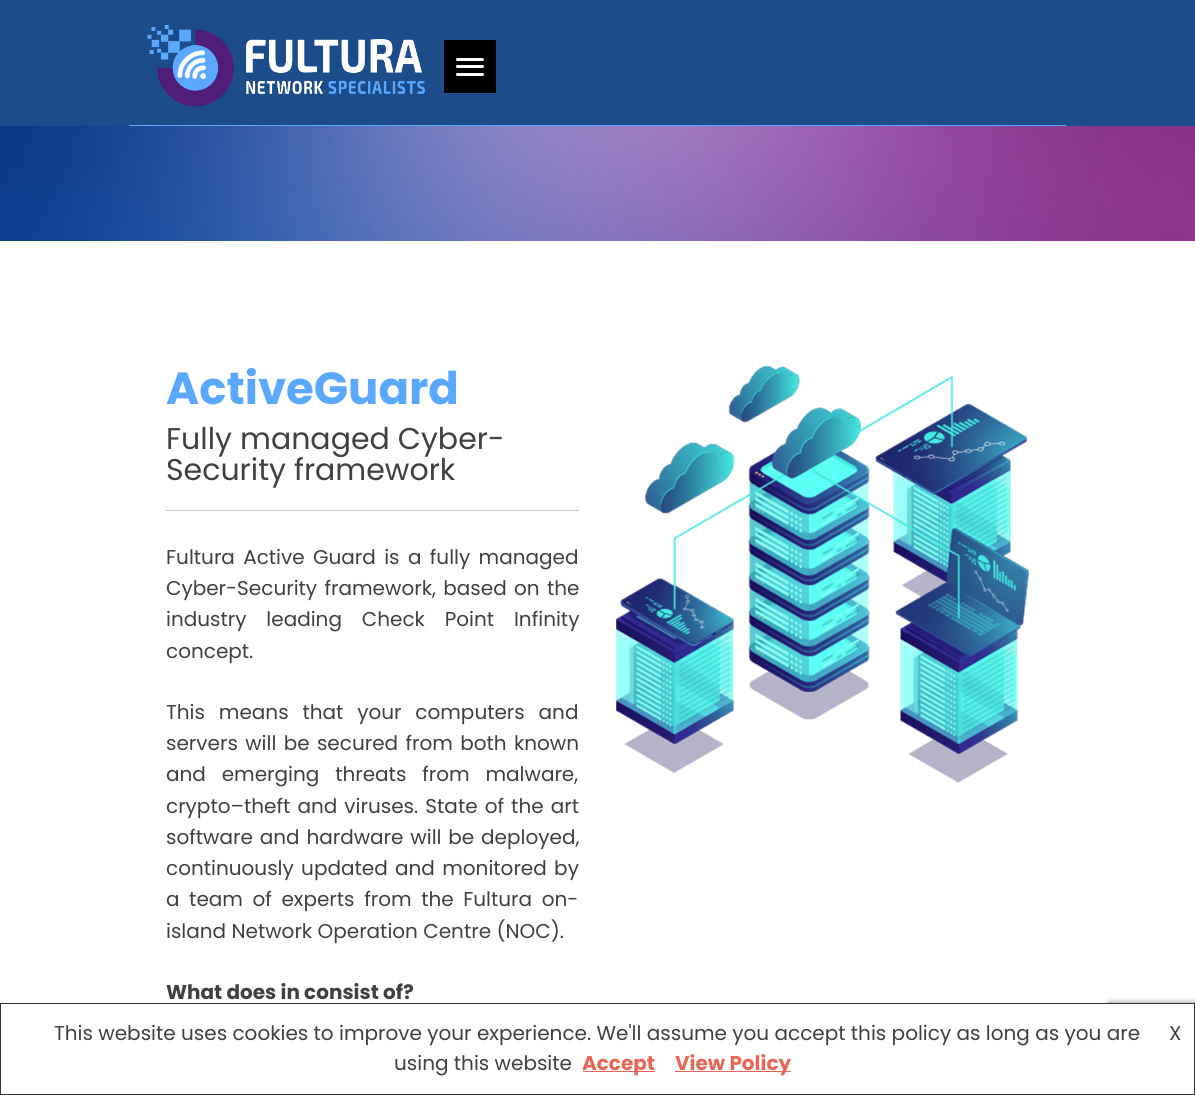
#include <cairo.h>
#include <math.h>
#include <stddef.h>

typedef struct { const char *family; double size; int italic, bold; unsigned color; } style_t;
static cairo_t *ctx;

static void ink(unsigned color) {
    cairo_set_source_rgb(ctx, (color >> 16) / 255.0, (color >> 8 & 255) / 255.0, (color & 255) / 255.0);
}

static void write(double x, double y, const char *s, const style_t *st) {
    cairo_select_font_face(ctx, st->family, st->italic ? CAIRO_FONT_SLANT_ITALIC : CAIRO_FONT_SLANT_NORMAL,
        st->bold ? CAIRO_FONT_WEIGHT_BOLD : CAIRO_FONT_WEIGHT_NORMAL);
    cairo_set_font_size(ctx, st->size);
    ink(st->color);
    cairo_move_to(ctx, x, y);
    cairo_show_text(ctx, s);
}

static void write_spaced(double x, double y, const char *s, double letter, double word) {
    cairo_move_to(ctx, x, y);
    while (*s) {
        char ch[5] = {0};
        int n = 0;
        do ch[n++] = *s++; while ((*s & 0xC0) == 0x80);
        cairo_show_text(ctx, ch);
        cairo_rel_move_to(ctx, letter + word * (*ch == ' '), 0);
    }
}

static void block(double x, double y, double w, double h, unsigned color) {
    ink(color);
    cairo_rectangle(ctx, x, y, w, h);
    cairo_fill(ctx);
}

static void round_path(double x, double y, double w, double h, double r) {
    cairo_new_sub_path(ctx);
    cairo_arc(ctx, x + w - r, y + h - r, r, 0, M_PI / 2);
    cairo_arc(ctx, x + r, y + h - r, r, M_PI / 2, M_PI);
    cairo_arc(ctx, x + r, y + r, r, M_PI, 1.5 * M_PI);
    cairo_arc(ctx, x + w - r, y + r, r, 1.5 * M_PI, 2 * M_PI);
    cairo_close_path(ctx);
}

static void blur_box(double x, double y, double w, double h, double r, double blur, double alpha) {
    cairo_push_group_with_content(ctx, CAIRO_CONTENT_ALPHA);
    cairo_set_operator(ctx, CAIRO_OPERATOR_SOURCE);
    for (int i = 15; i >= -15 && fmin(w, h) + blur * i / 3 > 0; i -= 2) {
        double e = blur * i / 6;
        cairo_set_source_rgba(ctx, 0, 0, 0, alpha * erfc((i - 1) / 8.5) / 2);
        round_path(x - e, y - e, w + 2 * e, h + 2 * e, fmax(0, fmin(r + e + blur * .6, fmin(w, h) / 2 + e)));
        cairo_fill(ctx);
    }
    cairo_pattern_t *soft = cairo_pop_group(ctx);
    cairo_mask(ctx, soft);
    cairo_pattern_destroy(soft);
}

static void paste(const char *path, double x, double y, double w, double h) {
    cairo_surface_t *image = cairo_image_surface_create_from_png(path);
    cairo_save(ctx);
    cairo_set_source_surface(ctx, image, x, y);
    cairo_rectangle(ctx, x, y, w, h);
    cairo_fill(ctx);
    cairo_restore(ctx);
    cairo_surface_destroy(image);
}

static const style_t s1 = {"Poppins", 45, 0, 1, 0x5aa8ff};
static const style_t s2 = {"Poppins", 30, 0, 0, 0x404040};
static const style_t s3 = {"Poppins", 20, 0, 0, 0x404040};
static const style_t s4 = {"Poppins", 20, 0, 1, 0x404040};
static const style_t s5 = {"Poppins", 20, 0, 1, 0xe96656};

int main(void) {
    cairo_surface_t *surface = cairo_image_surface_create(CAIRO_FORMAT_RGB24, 1195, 1095);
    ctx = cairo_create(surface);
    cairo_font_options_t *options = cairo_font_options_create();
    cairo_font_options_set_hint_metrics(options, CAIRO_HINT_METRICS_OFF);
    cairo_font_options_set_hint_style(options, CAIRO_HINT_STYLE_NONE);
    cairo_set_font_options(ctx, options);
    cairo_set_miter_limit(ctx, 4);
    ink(0xffffff);
    cairo_paint(ctx);
    block(0, 0, 1195, 126, 0x1c4c8a);
    block(129, 125, 937, 1, 0x5aa8ff);
    paste("pic1.png", 147, 25, 278, 82);
    block(444, 40, 52, 53, 0x000000);
    ink(0xffffff);
    round_path(456, 58, 28, 3, 1.5);
    cairo_fill(ctx);
    round_path(456, 65, 28, 3, 1.5);
    cairo_fill(ctx);
    round_path(456, 73, 28, 3, 1.5);
    cairo_fill(ctx);
    paste("pic2.png", 0, 126, 1195, 115);
    write(166, 404, "ActiveGuard", &s1);
    write(166, 449, "Fully managed Cyber-", &s2);
    write(166, 480, "Security framework", &s2);
    block(166, 510, 413, 1, 0xcccccc);
    cairo_set_font_size(ctx, 20);
    ink(0x404040);
    write_spaced(166, 564, "Fultura Active Guard is a fully managed", 0, 3);
    write_spaced(166, 595, "Cyber-Security framework, based on the", 0, 2);
    write_spaced(166, 626, "industry leading Check Point Infinity", 0, 14.5);
    write(166, 658, "concept.", &s3);
    write_spaced(166, 719, "This means that your computers and", 0, 8.5);
    write_spaced(166, 750, "servers will be secured from both known", 0, 2);
    write_spaced(166, 781, "and emerging threats from malware,", 0, 10.5);
    write_spaced(166, 813, "crypto–theft and viruses. State of the art", 0, 1.75);
    write_spaced(166, 844, "software and hardware will be deployed,", 0, 1.5);
    write_spaced(166, 875, "continuously updated and monitored by", 0, 2);
    write_spaced(166, 906, "a team of experts from the Fultura on-", 0, 4.25);
    write(166, 938, "island Network Operation Centre (NOC).", &s3);
    write(166, 999, "What does in consist of?", &s4);
    paste("pic3.png", 616, 366, 413, 417);
    ink(0x808080);
    blur_box(1108, 1003, 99, 75, 2.5, 3, 1);
    block(1102, 1004, 92, 80, 0xffffff);
    cairo_rectangle(ctx, 0.5, 1003.5, 1194, 91);
    ink(0x333333);
    cairo_set_line_width(ctx, 1);
    cairo_stroke(ctx);
    write(54, 1040, "This website uses cookies to improve your experience. We'll assume you accept this policy as long as you are", &s3);
    write(1169, 1040, "X", &s3);
    write(394, 1070, "using this website", &s3);
    block(583, 1071, 72, 1, 0xe96656);
    write(582, 1070, "Accept", &s5);
    block(675, 1071, 116, 1, 0xe96656);
    write(675, 1070, "View Policy", &s5);
    cairo_surface_write_to_png(surface, "screenshot.png");
    cairo_font_options_destroy(options);
    cairo_destroy(ctx);
    cairo_surface_destroy(surface);
    return 0;
}
